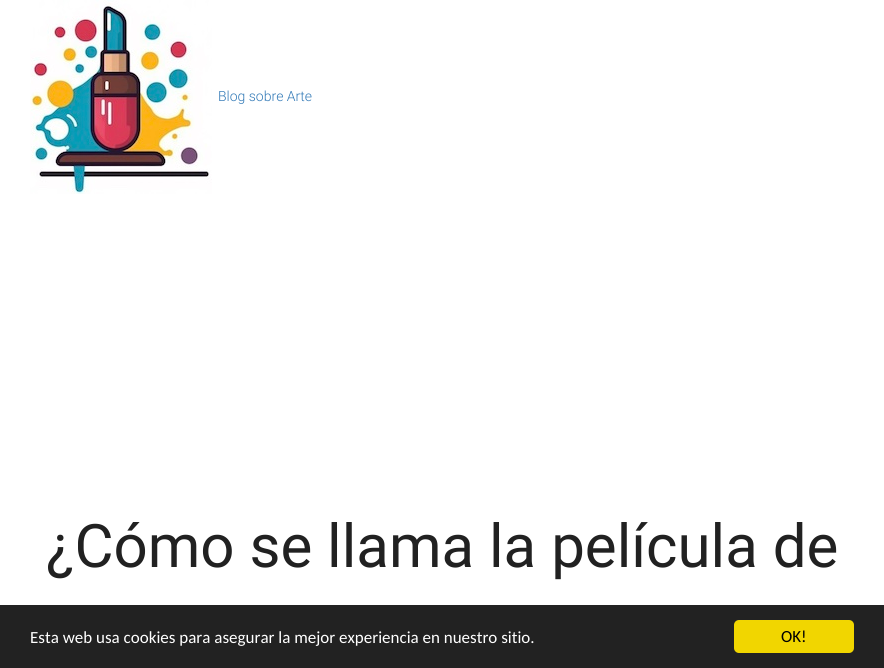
#include <cairo.h>
#include <math.h>
#include <stddef.h>

typedef struct { const char *family; double size; int italic, bold; unsigned color; } style_t;
static cairo_t *ctx;

static void ink(unsigned color) {
    cairo_set_source_rgb(ctx, (color >> 16) / 255.0, (color >> 8 & 255) / 255.0, (color & 255) / 255.0);
}

static void write(double x, double y, const char *s, const style_t *st) {
    cairo_select_font_face(ctx, st->family, st->italic ? CAIRO_FONT_SLANT_ITALIC : CAIRO_FONT_SLANT_NORMAL,
        st->bold ? CAIRO_FONT_WEIGHT_BOLD : CAIRO_FONT_WEIGHT_NORMAL);
    cairo_set_font_size(ctx, st->size);
    ink(st->color);
    cairo_move_to(ctx, x, y);
    cairo_show_text(ctx, s);
}

static void block(double x, double y, double w, double h, unsigned color) {
    ink(color);
    cairo_rectangle(ctx, x, y, w, h);
    cairo_fill(ctx);
}

static void round_path(double x, double y, double w, double h, double r) {
    cairo_new_sub_path(ctx);
    cairo_arc(ctx, x + w - r, y + h - r, r, 0, M_PI / 2);
    cairo_arc(ctx, x + r, y + h - r, r, M_PI / 2, M_PI);
    cairo_arc(ctx, x + r, y + r, r, M_PI, 1.5 * M_PI);
    cairo_arc(ctx, x + w - r, y + r, r, 1.5 * M_PI, 2 * M_PI);
    cairo_close_path(ctx);
}

static void paste(const char *path, double x, double y, double w, double h) {
    cairo_surface_t *image = cairo_image_surface_create_from_png(path);
    cairo_save(ctx);
    cairo_set_source_surface(ctx, image, x, y);
    cairo_rectangle(ctx, x, y, w, h);
    cairo_fill(ctx);
    cairo_restore(ctx);
    cairo_surface_destroy(image);
}

static const style_t s1 = {"Roboto Light", 14, 0, 0, 0x337ab7};
static const style_t s2 = {"Roboto", 60, 0, 0, 0x212121};
static const style_t s3 = {"Carlito", 17, 0, 0, 0xffffff};
static const style_t s4 = {"Carlito", 17, 0, 0, 0x000000};

int main(void) {
    cairo_surface_t *surface = cairo_image_surface_create(CAIRO_FORMAT_RGB24, 884, 668);
    ctx = cairo_create(surface);
    cairo_font_options_t *options = cairo_font_options_create();
    cairo_font_options_set_hint_metrics(options, CAIRO_HINT_METRICS_OFF);
    cairo_font_options_set_hint_style(options, CAIRO_HINT_STYLE_NONE);
    cairo_set_font_options(ctx, options);
    cairo_set_miter_limit(ctx, 4);
    ink(0xffffff);
    cairo_paint(ctx);
    paste("pic1.png", 30, 0, 182, 194);
    write(218, 101, "Blog sobre Arte", &s1);
    write(46, 567, "¿Cómo se llama la película de", &s2);
    block(0, 605, 884, 63, 0x222222);
    write(30, 643, "Esta web usa cookies para asegurar la mejor experiencia en nuestro sitio.", &s3);
    ink(0xf1d600);
    round_path(734, 620, 120, 33, 5);
    cairo_fill(ctx);
    write(781, 642, "OK!", &s4);
    cairo_surface_write_to_png(surface, "screenshot.png");
    cairo_font_options_destroy(options);
    cairo_destroy(ctx);
    cairo_surface_destroy(surface);
    return 0;
}
